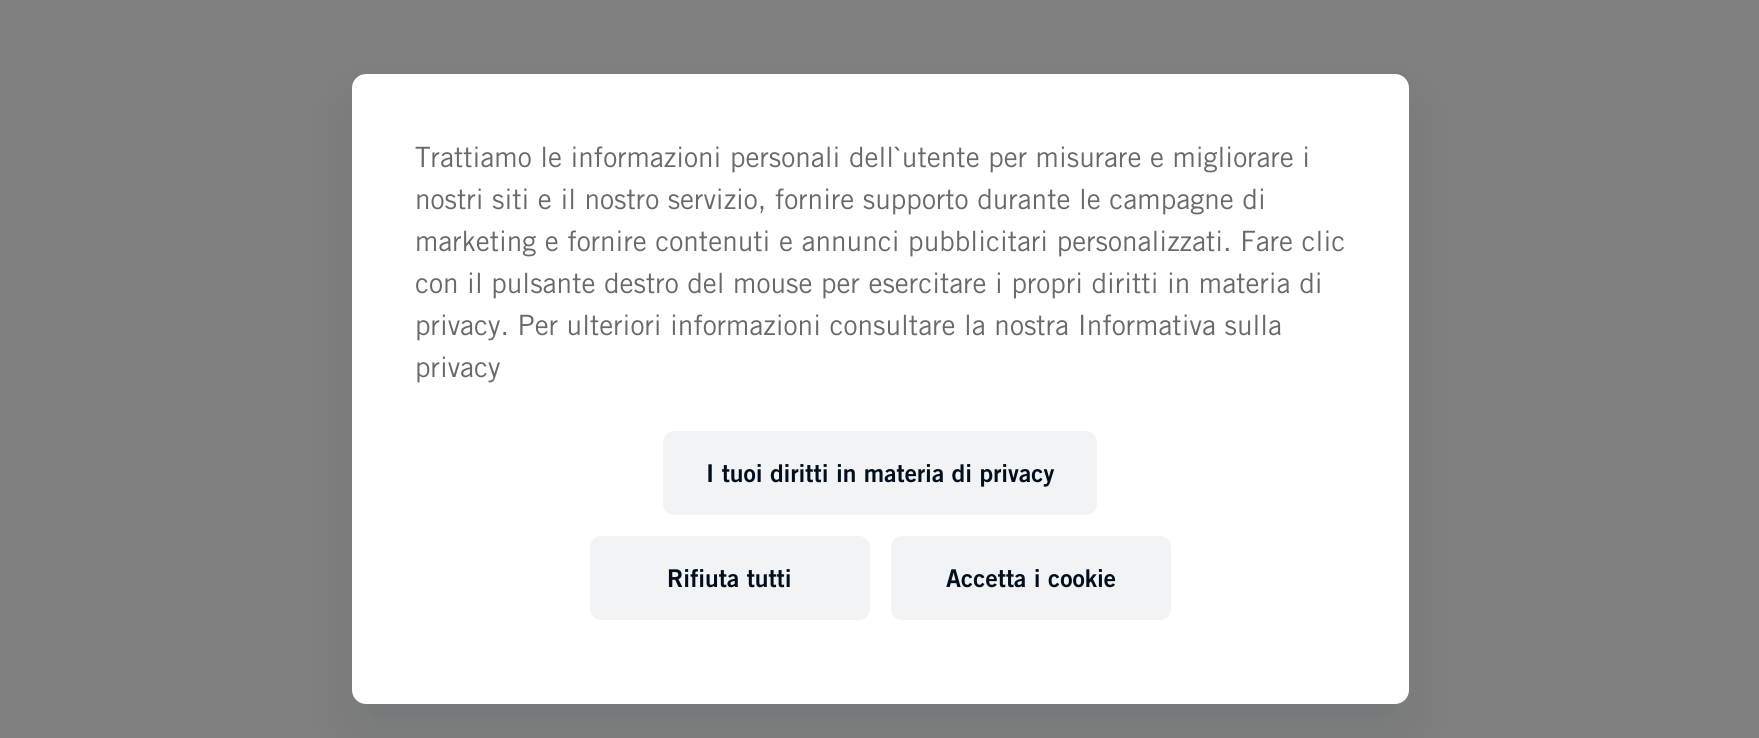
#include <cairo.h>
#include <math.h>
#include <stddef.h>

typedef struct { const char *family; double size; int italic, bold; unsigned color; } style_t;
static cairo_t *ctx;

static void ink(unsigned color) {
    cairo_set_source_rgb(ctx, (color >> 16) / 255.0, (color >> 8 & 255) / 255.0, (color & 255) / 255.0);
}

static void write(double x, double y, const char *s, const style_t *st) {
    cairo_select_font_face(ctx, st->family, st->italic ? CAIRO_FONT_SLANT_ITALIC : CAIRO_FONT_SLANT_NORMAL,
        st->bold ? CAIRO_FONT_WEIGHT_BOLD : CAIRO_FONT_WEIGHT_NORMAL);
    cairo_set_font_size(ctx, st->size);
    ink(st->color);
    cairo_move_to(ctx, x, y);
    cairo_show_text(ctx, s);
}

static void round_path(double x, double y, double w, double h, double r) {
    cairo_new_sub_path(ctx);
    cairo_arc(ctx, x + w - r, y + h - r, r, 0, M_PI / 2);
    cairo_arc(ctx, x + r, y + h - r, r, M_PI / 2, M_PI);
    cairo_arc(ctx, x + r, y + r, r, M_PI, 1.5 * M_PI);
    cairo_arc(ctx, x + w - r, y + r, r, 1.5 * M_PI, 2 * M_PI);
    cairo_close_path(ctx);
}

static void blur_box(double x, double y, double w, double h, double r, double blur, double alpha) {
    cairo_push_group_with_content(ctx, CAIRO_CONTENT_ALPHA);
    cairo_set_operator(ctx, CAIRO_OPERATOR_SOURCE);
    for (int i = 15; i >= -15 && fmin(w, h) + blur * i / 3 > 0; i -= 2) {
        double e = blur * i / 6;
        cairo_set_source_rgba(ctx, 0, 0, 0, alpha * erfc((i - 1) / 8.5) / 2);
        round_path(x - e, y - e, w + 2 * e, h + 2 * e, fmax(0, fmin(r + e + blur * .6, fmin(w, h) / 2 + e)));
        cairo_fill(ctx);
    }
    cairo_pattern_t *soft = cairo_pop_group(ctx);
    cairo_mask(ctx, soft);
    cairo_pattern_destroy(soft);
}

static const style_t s1 = {"Trade Gothic", 28, 0, 0, 0x696969};
static const style_t s2 = {"Trade Gothic", 24.5, 0, 1, 0x000f1e};

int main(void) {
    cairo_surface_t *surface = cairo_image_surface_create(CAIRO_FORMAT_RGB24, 1759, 738);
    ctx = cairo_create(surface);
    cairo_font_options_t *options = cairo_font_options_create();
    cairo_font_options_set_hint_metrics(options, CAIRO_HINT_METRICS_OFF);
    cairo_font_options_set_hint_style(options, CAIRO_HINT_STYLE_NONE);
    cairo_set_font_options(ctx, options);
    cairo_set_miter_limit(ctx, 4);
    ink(0x808080);
    cairo_paint(ctx);
    ink(0x000f1e);
    blur_box(352, 102, 1057, 630, 14, 28, 0.08);
    ink(0xffffff);
    round_path(352, 74, 1057, 630, 14);
    cairo_fill(ctx);
    write(415, 167, "Trattiamo le informazioni personali dell`utente per misurare e migliorare i", &s1);
    write(415, 209, "nostri siti e il nostro servizio, fornire supporto durante le campagne di", &s1);
    write(415, 251, "marketing e fornire contenuti e annunci pubblicitari personalizzati. Fare clic", &s1);
    write(415, 293, "con il pulsante destro del mouse per esercitare i propri diritti in materia di", &s1);
    write(415, 335, "privacy. Per ulteriori informazioni consultare la nostra Informativa sulla", &s1);
    write(415, 377, "privacy", &s1);
    ink(0xf2f3f4);
    round_path(663, 431, 434, 84, 11);
    cairo_fill(ctx);
    write(706, 482, "I tuoi diritti in materia di privacy", &s2);
    ink(0xf2f3f4);
    round_path(590, 536, 280, 84, 11);
    cairo_fill(ctx);
    write(667, 587, "Rifiuta tutti", &s2);
    ink(0xf2f3f4);
    round_path(891, 536, 280, 84, 11);
    cairo_fill(ctx);
    write(946, 587, "Accetta i cookie", &s2);
    cairo_surface_write_to_png(surface, "screenshot.png");
    cairo_font_options_destroy(options);
    cairo_destroy(ctx);
    cairo_surface_destroy(surface);
    return 0;
}
